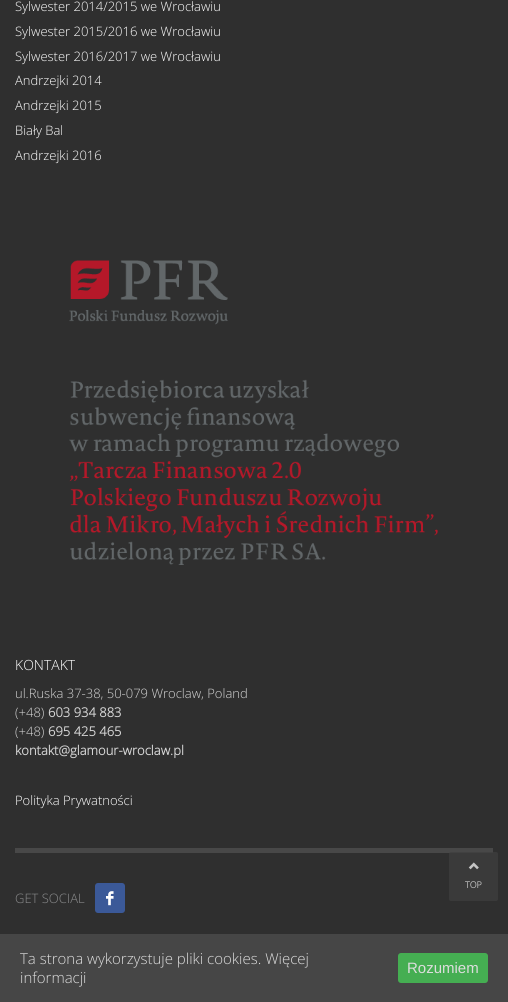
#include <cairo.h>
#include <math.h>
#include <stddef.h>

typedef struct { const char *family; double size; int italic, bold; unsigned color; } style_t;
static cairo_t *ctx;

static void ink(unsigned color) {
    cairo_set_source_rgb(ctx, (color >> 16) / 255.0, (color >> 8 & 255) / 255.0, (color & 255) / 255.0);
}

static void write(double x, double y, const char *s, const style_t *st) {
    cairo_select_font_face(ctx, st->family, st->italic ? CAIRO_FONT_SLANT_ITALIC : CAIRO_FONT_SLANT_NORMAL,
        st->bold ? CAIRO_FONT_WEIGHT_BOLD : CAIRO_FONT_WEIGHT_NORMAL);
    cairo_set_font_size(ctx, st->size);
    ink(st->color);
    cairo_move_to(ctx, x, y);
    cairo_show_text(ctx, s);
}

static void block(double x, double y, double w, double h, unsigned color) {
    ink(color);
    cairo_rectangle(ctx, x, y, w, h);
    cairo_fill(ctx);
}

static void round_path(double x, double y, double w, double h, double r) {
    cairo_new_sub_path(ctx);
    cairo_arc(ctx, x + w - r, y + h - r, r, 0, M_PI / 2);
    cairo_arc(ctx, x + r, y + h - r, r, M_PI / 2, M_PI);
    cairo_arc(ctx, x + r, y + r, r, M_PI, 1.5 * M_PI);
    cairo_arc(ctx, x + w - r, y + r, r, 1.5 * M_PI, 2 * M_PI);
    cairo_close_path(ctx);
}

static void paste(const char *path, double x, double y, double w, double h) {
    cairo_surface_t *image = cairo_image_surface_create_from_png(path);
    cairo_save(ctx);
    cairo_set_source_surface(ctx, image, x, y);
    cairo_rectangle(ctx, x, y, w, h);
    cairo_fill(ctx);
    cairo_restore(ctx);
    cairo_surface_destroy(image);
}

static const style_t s1 = {"Open Sans Light", 13, 0, 0, 0xffffff};
static const style_t s2 = {"Open Sans Light", 14, 0, 0, 0xffffff};
static const style_t s3 = {"Open Sans Light", 13, 0, 0, 0xd5d5d5};
static const style_t s4 = {"Open Sans", 13, 0, 1, 0xd5d5d5};
static const style_t s5 = {"Open Sans Light", 13, 0, 0, 0x8b8c8d};
static const style_t s6 = {"Open Sans", 9, 0, 1, 0xc1c1c1};
static const style_t s7 = {"Open Sans Light", 15, 0, 0, 0xdddddd};
static const style_t s8 = {"Liberation Sans", 15, 0, 0, 0xdddddd};

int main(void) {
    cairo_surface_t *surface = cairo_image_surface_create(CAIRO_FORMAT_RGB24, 508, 1002);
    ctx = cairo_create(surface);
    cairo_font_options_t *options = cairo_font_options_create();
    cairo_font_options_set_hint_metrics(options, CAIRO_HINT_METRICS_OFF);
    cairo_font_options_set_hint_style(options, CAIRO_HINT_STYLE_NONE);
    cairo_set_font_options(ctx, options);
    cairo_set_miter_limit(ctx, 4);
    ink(0x2f2f2f);
    cairo_paint(ctx);
    write(15, 11, "Sylwester 2014/2015 we Wrocławiu", &s1);
    write(15, 36, "Sylwester 2015/2016 we Wrocławiu", &s1);
    write(15, 61, "Sylwester 2016/2017 we Wrocławiu", &s1);
    write(15, 85, "Andrzejki 2014", &s1);
    write(15, 110, "Andrzejki 2015", &s1);
    write(15, 135, "Biały Bal", &s1);
    write(15, 160, "Andrzejki 2016", &s1);
    paste("pic1.png", 69, 260, 369, 305);
    write(15, 670, "KONTAKT", &s2);
    write(15, 698, "ul.Ruska 37-38, 50-079 Wroclaw, Poland", &s3);
    write(15, 717, "(+48)", &s3);
    write(48, 717, "603 934 883", &s4);
    write(15, 736, "(+48)", &s3);
    write(48, 736, "695 425 465", &s4);
    write(15, 755, "kontakt@glamour-wroclaw.pl", &s4);
    write(15, 805, "Polityka Prywatności", &s1);
    block(15, 848, 478, 5, 0x484848);
    write(15, 903, "GET SOCIAL", &s5);
    ink(0x3b5998);
    round_path(95, 883, 30, 30, 3);
    cairo_fill(ctx);
    paste("pic2.png", 106, 891, 8, 15);
    cairo_set_source_rgba(ctx, 0.251, 0.251, 0.251, 0.7);
    round_path(449, 852, 49, 49, 2);
    cairo_fill(ctx);
    paste("pic3.png", 468, 862, 11, 8);
    write(465, 888, "TOP", &s6);
    block(0, 934, 508, 68, 0x464646);
    write(20, 964, "Ta strona wykorzystuje pliki cookies. Więcej", &s7);
    write(20, 983, "informacji", &s7);
    ink(0x45ae52);
    round_path(398, 953, 90, 30, 3);
    cairo_fill(ctx);
    write(407, 973, "Rozumiem", &s8);
    cairo_surface_write_to_png(surface, "screenshot.png");
    cairo_font_options_destroy(options);
    cairo_destroy(ctx);
    cairo_surface_destroy(surface);
    return 0;
}
